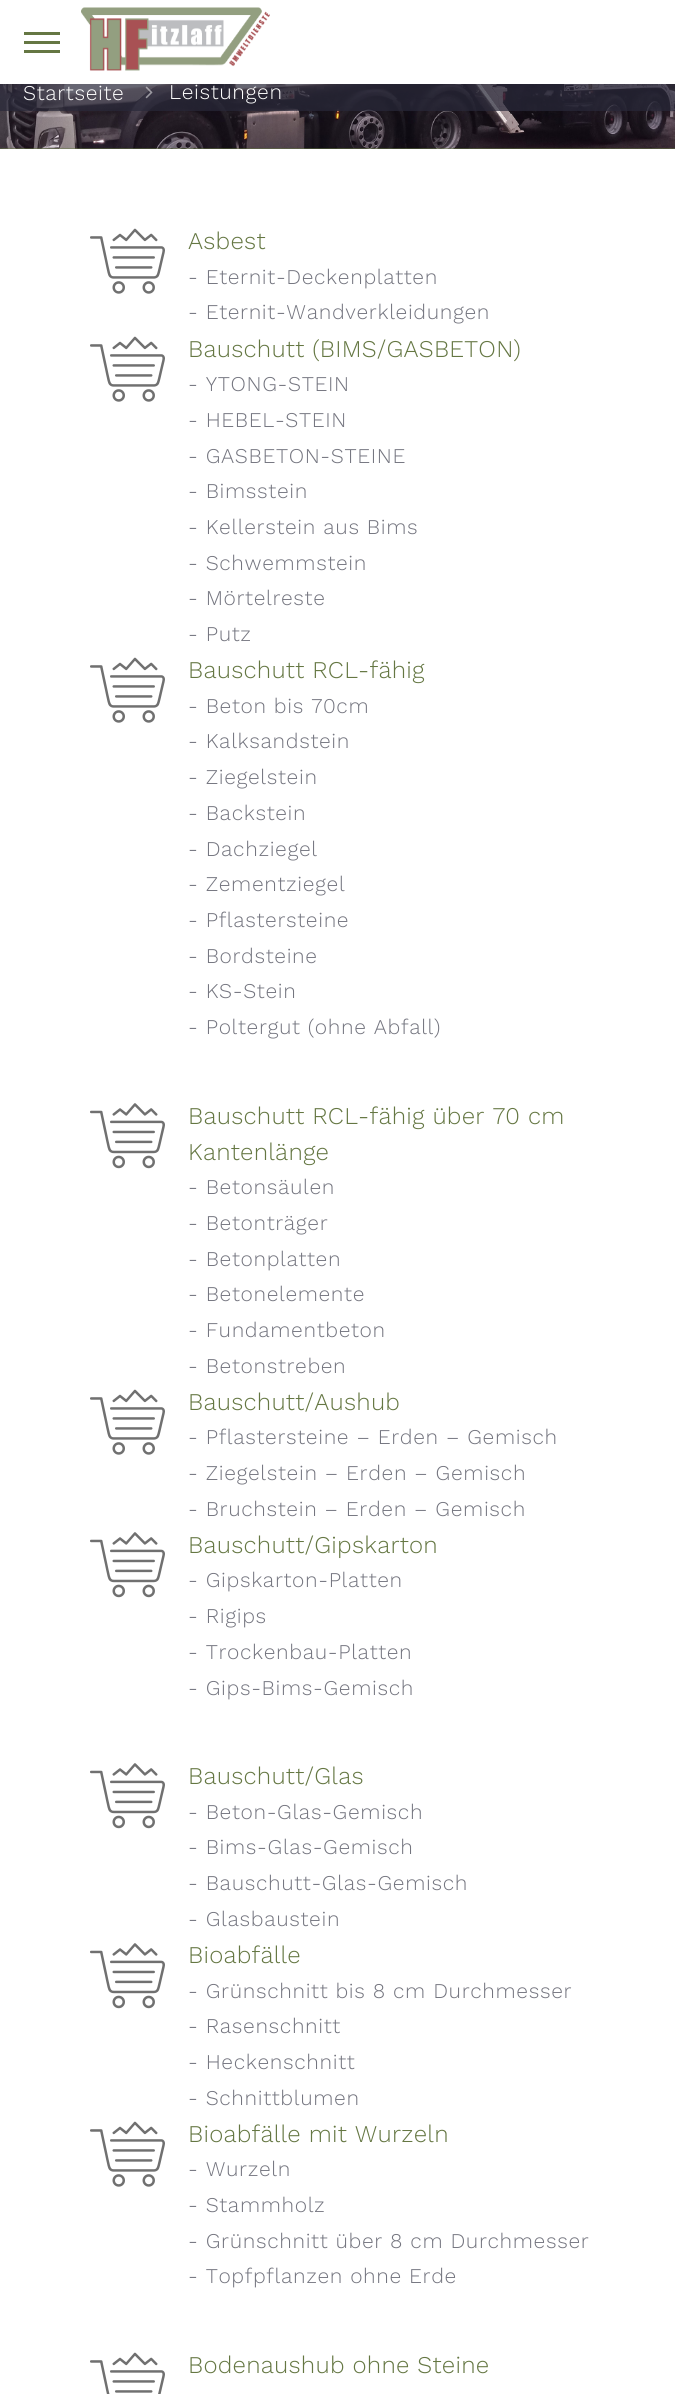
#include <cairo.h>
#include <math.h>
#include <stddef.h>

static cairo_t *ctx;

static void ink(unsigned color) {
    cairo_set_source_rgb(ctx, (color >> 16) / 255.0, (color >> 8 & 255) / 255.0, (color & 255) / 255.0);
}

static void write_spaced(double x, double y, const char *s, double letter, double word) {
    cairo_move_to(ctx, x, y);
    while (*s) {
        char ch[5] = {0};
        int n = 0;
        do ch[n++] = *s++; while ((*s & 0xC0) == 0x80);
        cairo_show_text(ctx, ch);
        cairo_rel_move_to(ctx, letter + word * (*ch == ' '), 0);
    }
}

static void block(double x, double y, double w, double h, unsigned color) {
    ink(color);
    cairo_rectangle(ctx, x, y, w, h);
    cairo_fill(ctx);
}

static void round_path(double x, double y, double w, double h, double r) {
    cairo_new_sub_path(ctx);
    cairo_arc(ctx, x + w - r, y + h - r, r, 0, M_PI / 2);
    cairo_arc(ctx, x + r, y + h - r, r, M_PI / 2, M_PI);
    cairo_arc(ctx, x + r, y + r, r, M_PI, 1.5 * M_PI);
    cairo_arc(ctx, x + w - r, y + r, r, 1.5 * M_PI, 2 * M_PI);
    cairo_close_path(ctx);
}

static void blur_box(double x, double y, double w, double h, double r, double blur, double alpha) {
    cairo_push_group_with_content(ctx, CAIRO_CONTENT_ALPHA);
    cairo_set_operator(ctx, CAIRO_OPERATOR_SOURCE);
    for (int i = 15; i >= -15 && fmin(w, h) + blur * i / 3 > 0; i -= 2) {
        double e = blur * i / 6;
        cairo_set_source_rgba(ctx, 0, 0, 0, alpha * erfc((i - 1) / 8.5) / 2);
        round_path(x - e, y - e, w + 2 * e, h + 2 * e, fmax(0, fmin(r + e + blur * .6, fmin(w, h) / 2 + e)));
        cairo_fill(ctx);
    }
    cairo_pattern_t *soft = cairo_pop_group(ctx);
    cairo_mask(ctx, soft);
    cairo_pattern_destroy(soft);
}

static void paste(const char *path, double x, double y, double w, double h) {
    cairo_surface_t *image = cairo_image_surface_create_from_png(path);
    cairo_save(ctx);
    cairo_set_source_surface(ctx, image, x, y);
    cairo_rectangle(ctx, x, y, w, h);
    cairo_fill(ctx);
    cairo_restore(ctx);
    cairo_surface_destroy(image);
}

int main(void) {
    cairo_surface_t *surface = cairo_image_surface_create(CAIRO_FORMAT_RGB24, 675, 2394);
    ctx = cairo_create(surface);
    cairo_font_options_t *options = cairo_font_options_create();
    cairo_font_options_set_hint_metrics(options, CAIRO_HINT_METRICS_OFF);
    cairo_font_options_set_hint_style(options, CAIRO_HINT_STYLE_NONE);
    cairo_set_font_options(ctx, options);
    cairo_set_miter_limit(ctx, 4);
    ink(0xffffff);
    cairo_paint(ctx);
    block(0, 148, 675, 1, 0x657743);
    paste("pic2.png", 0, 84, 675, 65);
    cairo_set_source_rgba(ctx, 0.161, 0.161, 0.227, 0.7);
    cairo_rectangle(ctx, 0, 84, 675, 27);
    cairo_fill(ctx);
    paste("pic3.png", 145, 86, 8, 13);
    ink(0x000000);
    blur_box(0, 0, 675, 84, 0, 7.5, 0.05);
    block(0, 0, 675, 84, 0xffffff);
    block(24, 41, 36, 3, 0x657743);
    block(24, 32, 36, 3, 0x657743);
    block(24, 50, 36, 3, 0x657743);
    paste("pic1.png", 81, 7, 189, 64);
    cairo_select_font_face(ctx, "Work Sans Light", CAIRO_FONT_SLANT_NORMAL, CAIRO_FONT_WEIGHT_NORMAL);
    cairo_set_font_size(ctx, 21);
    ink(0xffffff);
    write_spaced(23, 100, "Startseite", 0.65, 0);
    write_spaced(169, 99, "Leistungen", 0.65, 0);
    paste("pic4.png", 90, 228, 75, 66);
    cairo_set_font_size(ctx, 24);
    ink(0x657743);
    write_spaced(188, 249, "Asbest", 0.25, 0);
    cairo_set_font_size(ctx, 21);
    ink(0x74757f);
    write_spaced(188, 284, "- Eternit-Deckenplatten", 0.65, 0);
    write_spaced(188, 319, "- Eternit-Wandverkleidungen", 0.65, 0);
    paste("pic4.png", 90, 336, 75, 66);
    cairo_set_font_size(ctx, 24);
    ink(0x657743);
    write_spaced(188, 357, "Bauschutt (BIMS/GASBETON)", 0.25, 0);
    cairo_set_font_size(ctx, 21);
    ink(0x74757f);
    write_spaced(188, 391, "- YTONG-STEIN", 0.65, 0);
    write_spaced(188, 427, "- HEBEL-STEIN", 0.65, 0);
    write_spaced(188, 463, "- GASBETON-STEINE", 0.65, 0);
    write_spaced(188, 498, "- Bimsstein", 0.65, 0);
    write_spaced(188, 534, "- Kellerstein aus Bims", 0.65, 0);
    write_spaced(188, 570, "- Schwemmstein", 0.65, 0);
    write_spaced(188, 605, "- Mörtelreste", 0.65, 0);
    write_spaced(188, 641, "- Putz", 0.65, 0);
    paste("pic4.png", 90, 657, 75, 66);
    cairo_set_font_size(ctx, 24);
    ink(0x657743);
    write_spaced(188, 678, "Bauschutt RCL-fähig", 0.25, 0);
    cairo_set_font_size(ctx, 21);
    ink(0x74757f);
    write_spaced(188, 713, "- Beton bis 70cm", 0.65, 0);
    write_spaced(188, 748, "- Kalksandstein", 0.65, 0);
    write_spaced(188, 784, "- Ziegelstein", 0.65, 0);
    write_spaced(188, 820, "- Backstein", 0.65, 0);
    write_spaced(188, 856, "- Dachziegel", 0.65, 0);
    write_spaced(188, 891, "- Zementziegel", 0.65, 0);
    write_spaced(188, 927, "- Pflastersteine", 0.65, 0);
    write_spaced(188, 963, "- Bordsteine", 0.65, 0);
    write_spaced(188, 998, "- KS-Stein", 0.65, 0);
    write_spaced(188, 1034, "- Poltergut (ohne Abfall)", 0.65, 0);
    paste("pic5.png", 90, 1103, 75, 66);
    cairo_set_font_size(ctx, 24);
    ink(0x657743);
    write_spaced(188, 1124, "Bauschutt RCL-fähig über 70 cm", 0.25, 0);
    write_spaced(188, 1160, "Kantenlänge", 0.25, 0);
    cairo_set_font_size(ctx, 21);
    ink(0x74757f);
    write_spaced(188, 1194, "- Betonsäulen", 0.65, 0);
    write_spaced(188, 1230, "- Betonträger", 0.65, 0);
    write_spaced(188, 1266, "- Betonplatten", 0.65, 0);
    write_spaced(188, 1301, "- Betonelemente", 0.65, 0);
    write_spaced(188, 1337, "- Fundamentbeton", 0.65, 0);
    write_spaced(188, 1373, "- Betonstreben", 0.65, 0);
    paste("pic4.png", 90, 1389, 75, 66);
    cairo_set_font_size(ctx, 24);
    ink(0x657743);
    write_spaced(188, 1410, "Bauschutt/Aushub", 0.25, 0);
    cairo_set_font_size(ctx, 21);
    ink(0x74757f);
    write_spaced(188, 1444, "- Pflastersteine – Erden – Gemisch", 0.65, 0);
    write_spaced(188, 1480, "- Ziegelstein – Erden – Gemisch", 0.65, 0);
    write_spaced(188, 1516, "- Bruchstein – Erden – Gemisch", 0.65, 0);
    paste("pic5.png", 90, 1532, 75, 66);
    cairo_set_font_size(ctx, 24);
    ink(0x657743);
    write_spaced(188, 1553, "Bauschutt/Gipskarton", 0.25, 0);
    cairo_set_font_size(ctx, 21);
    ink(0x74757f);
    write_spaced(188, 1587, "- Gipskarton-Platten", 0.65, 0);
    write_spaced(188, 1623, "- Rigips", 0.65, 0);
    write_spaced(188, 1659, "- Trockenbau-Platten", 0.65, 0);
    write_spaced(188, 1695, "- Gips-Bims-Gemisch", 0.65, 0);
    paste("pic5.png", 90, 1763, 75, 66);
    cairo_set_font_size(ctx, 24);
    ink(0x657743);
    write_spaced(188, 1784, "Bauschutt/Glas", 0.25, 0);
    cairo_set_font_size(ctx, 21);
    ink(0x74757f);
    write_spaced(188, 1819, "- Beton-Glas-Gemisch", 0.65, 0);
    write_spaced(188, 1854, "- Bims-Glas-Gemisch", 0.65, 0);
    write_spaced(188, 1890, "- Bauschutt-Glas-Gemisch", 0.65, 0);
    write_spaced(188, 1926, "- Glasbaustein", 0.65, 0);
    paste("pic5.png", 90, 1943, 75, 66);
    cairo_set_font_size(ctx, 24);
    ink(0x657743);
    write_spaced(188, 1963, "Bioabfälle", 0.25, 0);
    cairo_set_font_size(ctx, 21);
    ink(0x74757f);
    write_spaced(188, 1998, "- Grünschnitt bis 8 cm Durchmesser", 0.65, 0);
    write_spaced(188, 2033, "- Rasenschnitt", 0.65, 0);
    write_spaced(188, 2069, "- Heckenschnitt", 0.65, 0);
    write_spaced(188, 2105, "- Schnittblumen", 0.65, 0);
    paste("pic4.png", 90, 2121, 75, 66);
    cairo_set_font_size(ctx, 24);
    ink(0x657743);
    write_spaced(188, 2142, "Bioabfälle mit Wurzeln", 0.25, 0);
    cairo_set_font_size(ctx, 21);
    ink(0x74757f);
    write_spaced(188, 2176, "- Wurzeln", 0.65, 0);
    write_spaced(188, 2212, "- Stammholz", 0.65, 0);
    write_spaced(188, 2248, "- Grünschnitt über 8 cm Durchmesser", 0.65, 0);
    write_spaced(188, 2283, "- Topfpflanzen ohne Erde", 0.65, 0);
    paste("pic6.png", 90, 2352, 75, 42);
    cairo_set_font_size(ctx, 24);
    ink(0x657743);
    write_spaced(188, 2373, "Bodenaushub ohne Steine", 0.25, 0);
    cairo_surface_write_to_png(surface, "screenshot.png");
    cairo_font_options_destroy(options);
    cairo_destroy(ctx);
    cairo_surface_destroy(surface);
    return 0;
}
